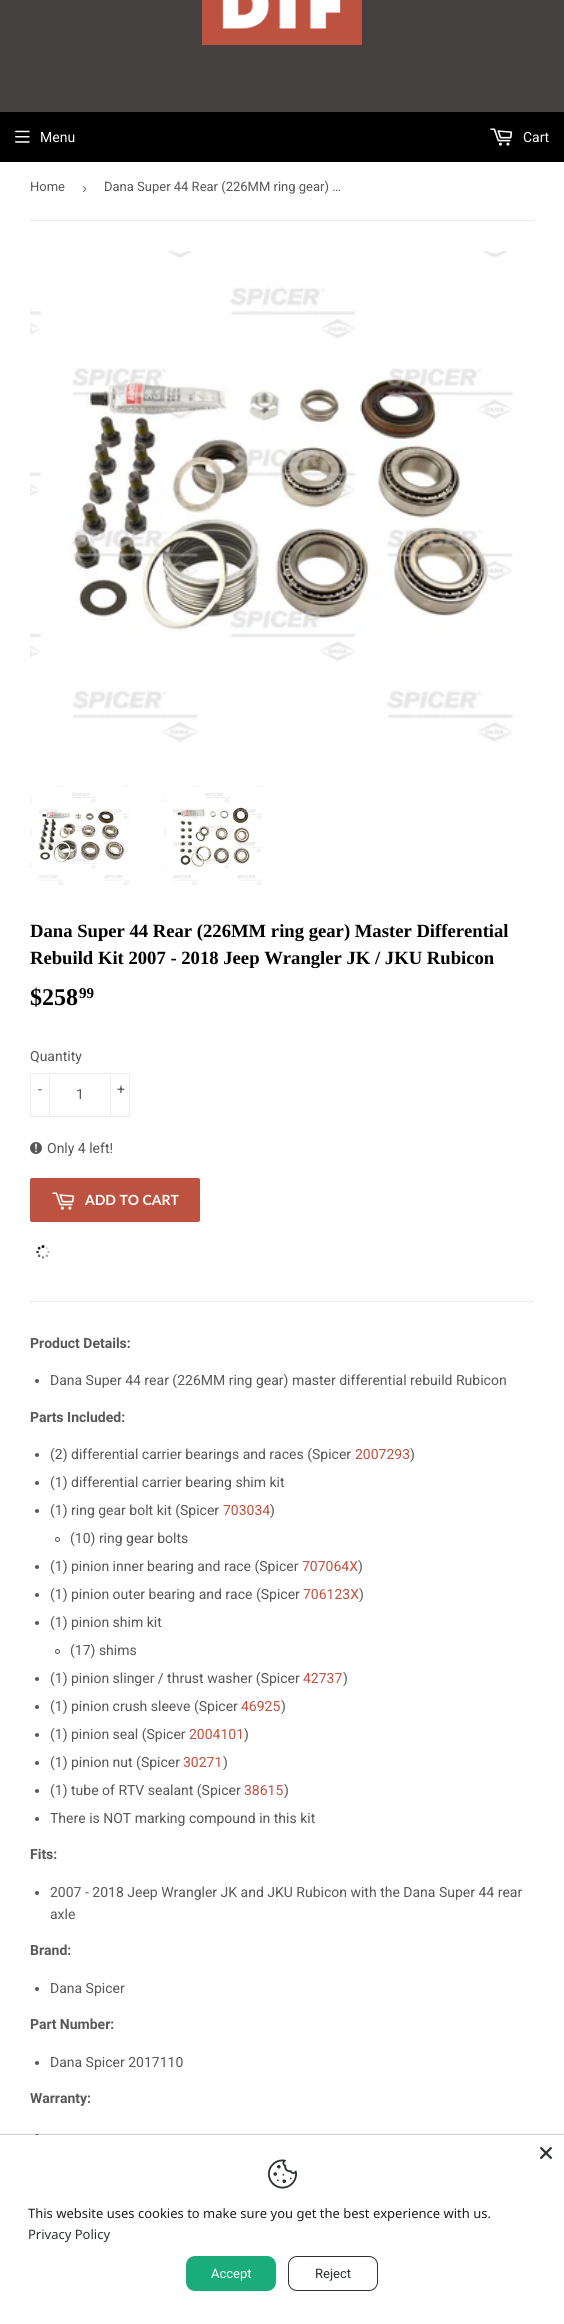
#include <cairo.h>
#include <math.h>
#include <stddef.h>

typedef struct { const char *family; double size; int italic, bold; unsigned color; } style_t;
static cairo_t *ctx;

static void ink(unsigned color) {
    cairo_set_source_rgb(ctx, (color >> 16) / 255.0, (color >> 8 & 255) / 255.0, (color & 255) / 255.0);
}

static void write(double x, double y, const char *s, const style_t *st) {
    cairo_select_font_face(ctx, st->family, st->italic ? CAIRO_FONT_SLANT_ITALIC : CAIRO_FONT_SLANT_NORMAL,
        st->bold ? CAIRO_FONT_WEIGHT_BOLD : CAIRO_FONT_WEIGHT_NORMAL);
    cairo_set_font_size(ctx, st->size);
    ink(st->color);
    cairo_move_to(ctx, x, y);
    cairo_show_text(ctx, s);
}

static void block(double x, double y, double w, double h, unsigned color) {
    ink(color);
    cairo_rectangle(ctx, x, y, w, h);
    cairo_fill(ctx);
}

static void round_path(double x, double y, double w, double h, double r) {
    cairo_new_sub_path(ctx);
    cairo_arc(ctx, x + w - r, y + h - r, r, 0, M_PI / 2);
    cairo_arc(ctx, x + r, y + h - r, r, M_PI / 2, M_PI);
    cairo_arc(ctx, x + r, y + r, r, M_PI, 1.5 * M_PI);
    cairo_arc(ctx, x + w - r, y + r, r, 1.5 * M_PI, 2 * M_PI);
    cairo_close_path(ctx);
}

static void blur_box(double x, double y, double w, double h, double r, double blur, double alpha) {
    cairo_push_group_with_content(ctx, CAIRO_CONTENT_ALPHA);
    cairo_set_operator(ctx, CAIRO_OPERATOR_SOURCE);
    for (int i = 15; i >= -15 && fmin(w, h) + blur * i / 3 > 0; i -= 2) {
        double e = blur * i / 6;
        cairo_set_source_rgba(ctx, 0, 0, 0, alpha * erfc((i - 1) / 8.5) / 2);
        round_path(x - e, y - e, w + 2 * e, h + 2 * e, fmax(0, fmin(r + e + blur * .6, fmin(w, h) / 2 + e)));
        cairo_fill(ctx);
    }
    cairo_pattern_t *soft = cairo_pop_group(ctx);
    cairo_mask(ctx, soft);
    cairo_pattern_destroy(soft);
}

static void paste(const char *path, double x, double y, double w, double h) {
    cairo_surface_t *image = cairo_image_surface_create_from_png(path);
    cairo_save(ctx);
    cairo_set_source_surface(ctx, image, x, y);
    cairo_rectangle(ctx, x, y, w, h);
    cairo_fill(ctx);
    cairo_restore(ctx);
    cairo_surface_destroy(image);
}

static const style_t s1 = {"Roboto", 14, 0, 0, 0xffffff};
static const style_t s2 = {"Roboto", 13, 0, 0, 0x585858};
static const style_t s3 = {"Liberation Sans", 15, 0, 0, 0x767676};
static const style_t s4 = {"Liberation Serif", 18.65, 0, 1, 0x000000};
static const style_t s5 = {"Liberation Serif", 24, 0, 1, 0x000000};
static const style_t s6 = {"Liberation Serif", 15, 0, 1, 0x000000};
static const style_t s7 = {"Roboto", 14, 0, 0, 0x585858};
static const style_t s8 = {"Lato", 14, 0, 1, 0xffffff};
static const style_t s9 = {"Roboto", 14, 0, 1, 0x585858};
static const style_t s10 = {"Roboto", 14, 0, 0, 0xbe5240};
static const style_t s11 = {"Noto Sans", 13, 0, 0, 0x1d1d1d};
static const style_t s12 = {"Noto Sans", 13, 0, 0, 0x2c332f};
static const style_t s13 = {"Roboto", 13, 0, 0, 0xffffff};
static const style_t s14 = {"Roboto", 13, 0, 0, 0x2c332f};

int main(void) {
    cairo_surface_t *surface = cairo_image_surface_create(CAIRO_FORMAT_RGB24, 564, 2324);
    ctx = cairo_create(surface);
    cairo_font_options_t *options = cairo_font_options_create();
    cairo_font_options_set_hint_metrics(options, CAIRO_HINT_METRICS_OFF);
    cairo_font_options_set_hint_style(options, CAIRO_HINT_STYLE_NONE);
    cairo_set_font_options(ctx, options);
    cairo_set_miter_limit(ctx, 4);
    ink(0xffffff);
    cairo_paint(ctx);
    block(0, 0, 564, 112, 0x444140);
    paste("pic1.png", 202, 0, 160, 45);
    block(0, 112, 564, 50, 0x000000);
    paste("pic2.png", 15, 130, 15, 13);
    write(40, 142, "Menu", &s1);
    paste("pic3.png", 490, 128, 23, 18);
    write(523, 142, "Cart", &s1);
    block(30, 220, 504, 1, 0xececec);
    write(30, 191, "Home", &s2);
    write(82, 193, "›", &s3);
    write(104, 191, "Dana Super 44 Rear (226MM ring gear) …", &s2);
    paste("pic4.png", 30, 251, 484, 492);
    paste("pic5.png", 30, 785, 100, 101);
    paste("pic6.png", 164, 785, 99, 101);
    write(30, 937, "Dana Super 44 Rear (226MM ring gear) Master Differential", &s4);
    write(30, 964, "Rebuild Kit 2007 - 2018 Jeep Wrangler JK / JKU Rubicon", &s4);
    write(30, 1005, "$258", &s5);
    write(79, 998, "99", &s6);
    write(30, 1061, "Quantity", &s7);
    round_path(30.5, 1073.5, 99, 43, 1.5);
    ink(0xececec);
    cairo_set_line_width(ctx, 1);
    cairo_stroke(ctx);
    block(49, 1073, 1, 44, 0xececec);
    write(38, 1094, "-", &s7);
    write(76, 1099, "1", &s7);
    block(110, 1073, 1, 44, 0xececec);
    write(117, 1094, "+", &s7);
    paste("pic7.png", 30, 1142, 12, 12);
    write(47, 1153, "Only 4 left!", &s7);
    ink(0xbe5240);
    round_path(30, 1178, 170, 44, 2);
    cairo_fill(ctx);
    paste("pic8.png", 52, 1192, 23, 18);
    write(85, 1205, "ADD TO CART", &s8);
    paste("pic9.png", 36, 1245, 14, 14);
    block(30, 1301, 504, 1, 0xececec);
    write(30, 1348, "Product Details:", &s9);
    cairo_new_path(ctx);
    cairo_arc(ctx, 37, 1381, 2, 0, 2 * M_PI);
    cairo_fill(ctx);
    write(50, 1385, "Dana Super 44 rear (226MM ring gear) master differential rebuild Rubicon", &s7);
    write(30, 1422, "Parts Included:", &s9);
    cairo_new_path(ctx);
    cairo_arc(ctx, 37, 1455, 2, 0, 2 * M_PI);
    cairo_fill(ctx);
    write(50, 1459, "(2) differential carrier bearings and races (Spicer", &s7);
    write(355, 1459, "2007293", &s10);
    write(410, 1459, ")", &s7);
    cairo_new_path(ctx);
    cairo_arc(ctx, 37, 1483, 2, 0, 2 * M_PI);
    cairo_fill(ctx);
    write(50, 1487, "(1) differential carrier bearing shim kit", &s7);
    cairo_new_path(ctx);
    cairo_arc(ctx, 37, 1511, 2, 0, 2 * M_PI);
    cairo_fill(ctx);
    write(50, 1515, "(1) ring gear bolt kit (Spicer", &s7);
    write(223, 1515, "703034", &s10);
    write(270, 1515, ")", &s7);
    cairo_new_path(ctx);
    cairo_arc(ctx, 57.5, 1539.5, 2, 0, 2 * M_PI);
    cairo_stroke(ctx);
    write(70, 1543, "(10) ring gear bolts", &s7);
    cairo_new_path(ctx);
    cairo_arc(ctx, 37, 1567, 2, 0, 2 * M_PI);
    cairo_fill(ctx);
    write(50, 1571, "(1) pinion inner bearing and race (Spicer", &s7);
    write(302, 1571, "707064X", &s10);
    write(358, 1571, ")", &s7);
    cairo_new_path(ctx);
    cairo_arc(ctx, 37, 1595, 2, 0, 2 * M_PI);
    cairo_fill(ctx);
    write(50, 1599, "(1) pinion outer bearing and race (Spicer", &s7);
    write(303, 1599, "706123X", &s10);
    write(359, 1599, ")", &s7);
    cairo_new_path(ctx);
    cairo_arc(ctx, 37, 1623, 2, 0, 2 * M_PI);
    cairo_fill(ctx);
    write(50, 1627, "(1) pinion shim kit", &s7);
    cairo_new_path(ctx);
    cairo_arc(ctx, 57.5, 1651.5, 2, 0, 2 * M_PI);
    cairo_stroke(ctx);
    write(70, 1655, "(17) shims", &s7);
    cairo_new_path(ctx);
    cairo_arc(ctx, 37, 1679, 2, 0, 2 * M_PI);
    cairo_fill(ctx);
    write(50, 1683, "(1) pinion slinger / thrust washer (Spicer", &s7);
    write(303, 1683, "42737", &s10);
    write(343, 1683, ")", &s7);
    cairo_new_path(ctx);
    cairo_arc(ctx, 37, 1707, 2, 0, 2 * M_PI);
    cairo_fill(ctx);
    write(50, 1711, "(1) pinion crush sleeve (Spicer", &s7);
    write(241, 1711, "46925", &s10);
    write(281, 1711, ")", &s7);
    cairo_new_path(ctx);
    cairo_arc(ctx, 37, 1735, 2, 0, 2 * M_PI);
    cairo_fill(ctx);
    write(50, 1739, "(1) pinion seal (Spicer", &s7);
    write(189, 1739, "2004101", &s10);
    write(244, 1739, ")", &s7);
    cairo_new_path(ctx);
    cairo_arc(ctx, 37, 1763, 2, 0, 2 * M_PI);
    cairo_fill(ctx);
    write(50, 1767, "(1) pinion nut (Spicer", &s7);
    write(183, 1767, "30271", &s10);
    write(223, 1767, ")", &s7);
    cairo_new_path(ctx);
    cairo_arc(ctx, 37, 1791, 2, 0, 2 * M_PI);
    cairo_fill(ctx);
    write(50, 1795, "(1) tube of RTV sealant (Spicer", &s7);
    write(244, 1795, "38615", &s10);
    write(284, 1795, ")", &s7);
    cairo_new_path(ctx);
    cairo_arc(ctx, 37, 1819, 2, 0, 2 * M_PI);
    cairo_fill(ctx);
    write(50, 1823, "There is NOT marking compound in this kit", &s7);
    write(30, 1859, "Fits:", &s9);
    cairo_new_path(ctx);
    cairo_arc(ctx, 37, 1893, 2, 0, 2 * M_PI);
    cairo_fill(ctx);
    write(50, 1897, "2007 - 2018 Jeep Wrangler JK and JKU Rubicon with the Dana Super 44 rear", &s7);
    write(50, 1919, "axle", &s7);
    write(30, 1955, "Brand:", &s9);
    cairo_new_path(ctx);
    cairo_arc(ctx, 37, 1989, 2, 0, 2 * M_PI);
    cairo_fill(ctx);
    write(50, 1993, "Dana Spicer", &s7);
    write(30, 2029, "Part Number:", &s9);
    cairo_new_path(ctx);
    cairo_arc(ctx, 37, 2063, 2, 0, 2 * M_PI);
    cairo_fill(ctx);
    write(50, 2067, "Dana Spicer 2017110", &s7);
    write(30, 2103, "Warranty:", &s9);
    cairo_new_path(ctx);
    cairo_arc(ctx, 37, 2136, 2, 0, 2 * M_PI);
    cairo_fill(ctx);
    ink(0x000000);
    blur_box(0, 2135, 564, 189, 0, 1, 0.5);
    block(0, 2135, 564, 189, 0xffffff);
    paste("pic10.png", 540, 2147, 12, 12);
    paste("pic11.png", 268, 2159, 29, 30);
    write(28, 2218, "This website uses cookies to make sure you get the best experience with us.", &s11);
    write(28, 2239, "Privacy Policy", &s12);
    ink(0x1aac7a);
    round_path(186, 2256, 90, 35, 9);
    cairo_fill(ctx);
    write(211, 2278, "Accept", &s13);
    round_path(288.5, 2256.5, 89, 34, 8.5);
    ink(0x2c332f);
    cairo_stroke(ctx);
    write(315, 2278, "Reject", &s14);
    cairo_surface_write_to_png(surface, "screenshot.png");
    cairo_font_options_destroy(options);
    cairo_destroy(ctx);
    cairo_surface_destroy(surface);
    return 0;
}
